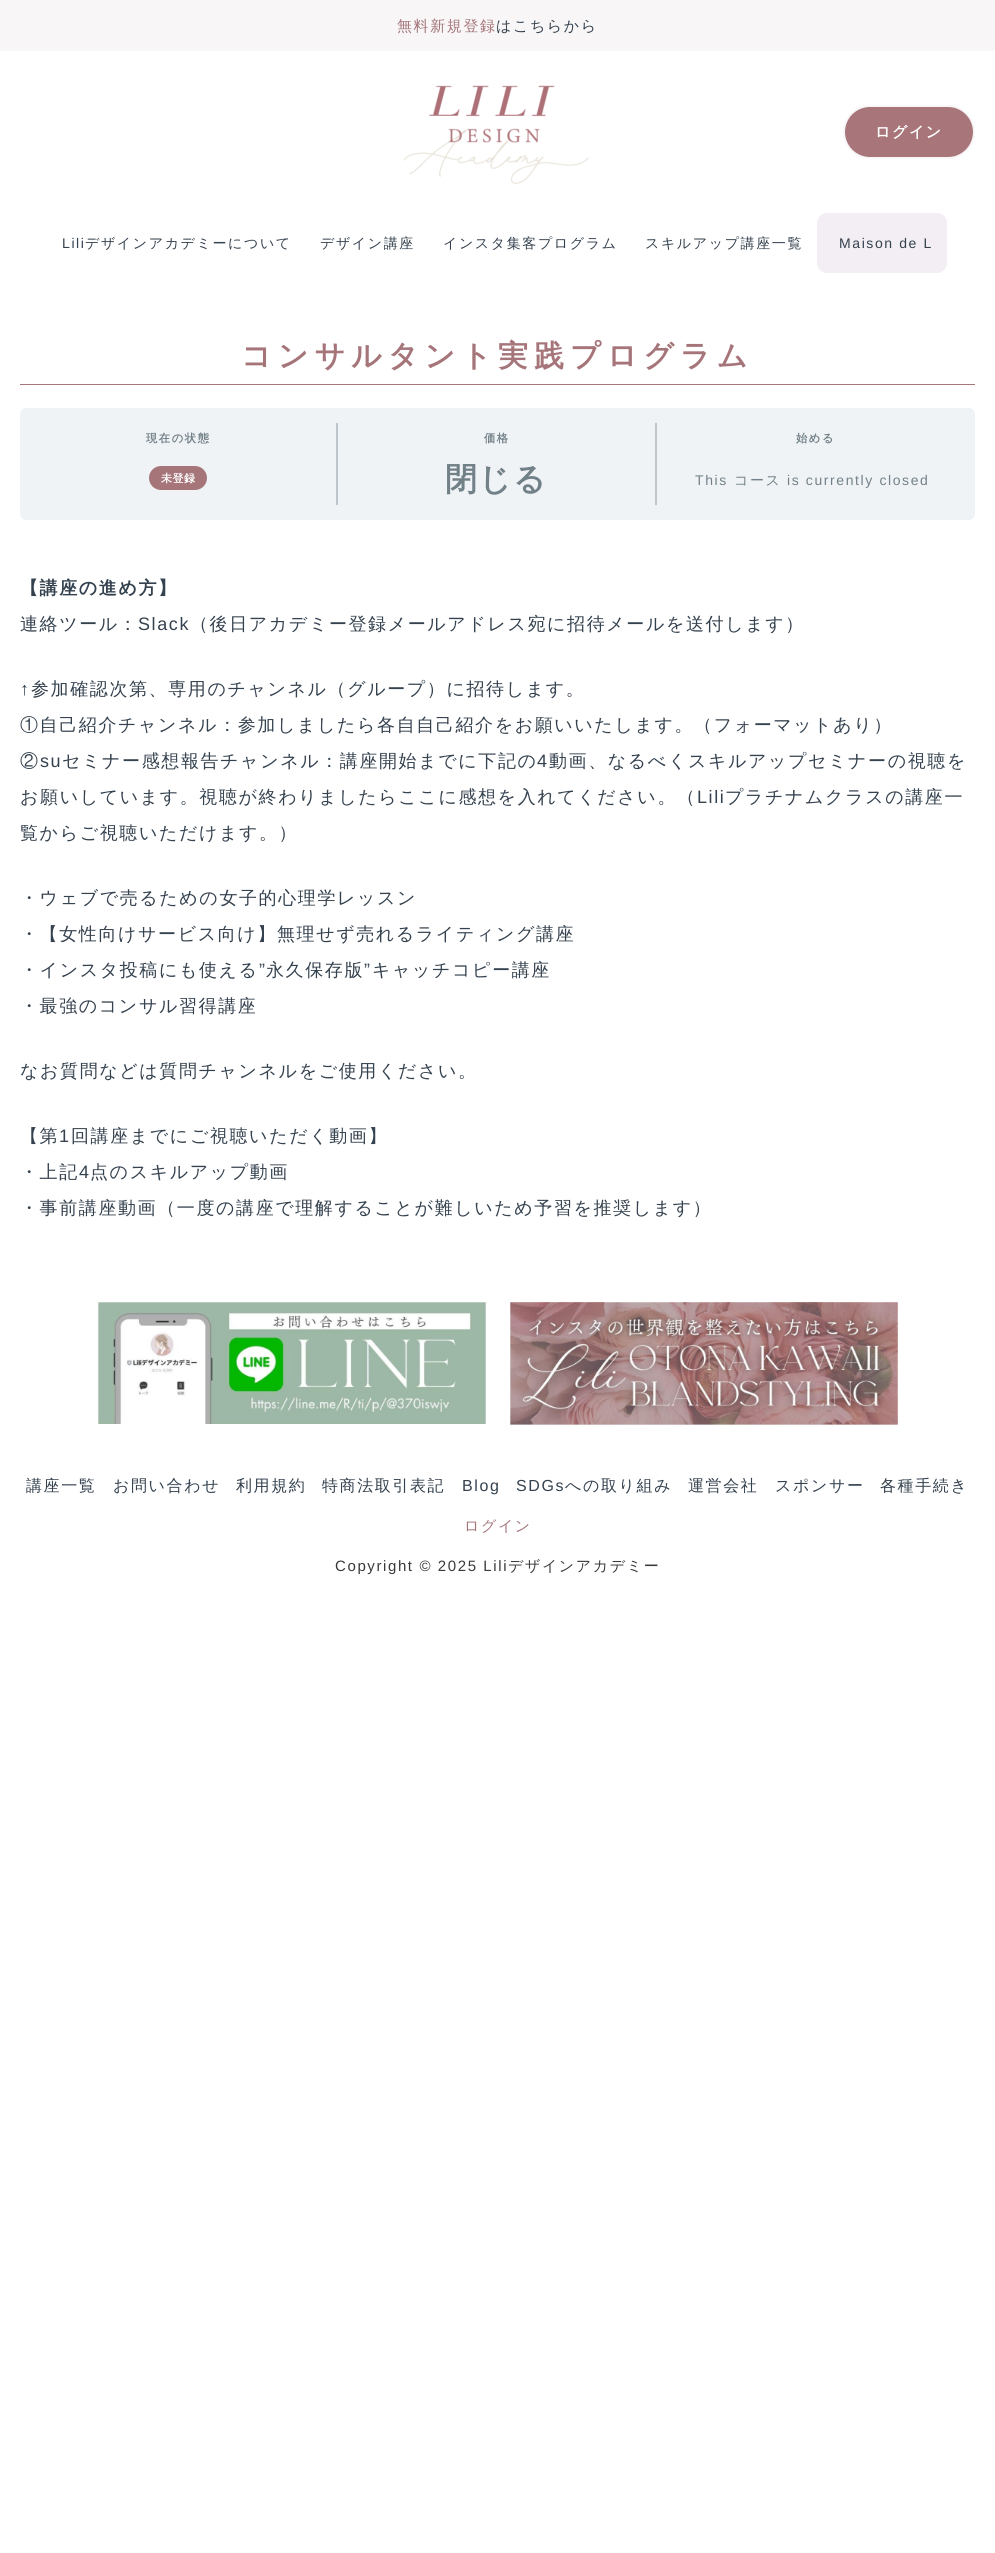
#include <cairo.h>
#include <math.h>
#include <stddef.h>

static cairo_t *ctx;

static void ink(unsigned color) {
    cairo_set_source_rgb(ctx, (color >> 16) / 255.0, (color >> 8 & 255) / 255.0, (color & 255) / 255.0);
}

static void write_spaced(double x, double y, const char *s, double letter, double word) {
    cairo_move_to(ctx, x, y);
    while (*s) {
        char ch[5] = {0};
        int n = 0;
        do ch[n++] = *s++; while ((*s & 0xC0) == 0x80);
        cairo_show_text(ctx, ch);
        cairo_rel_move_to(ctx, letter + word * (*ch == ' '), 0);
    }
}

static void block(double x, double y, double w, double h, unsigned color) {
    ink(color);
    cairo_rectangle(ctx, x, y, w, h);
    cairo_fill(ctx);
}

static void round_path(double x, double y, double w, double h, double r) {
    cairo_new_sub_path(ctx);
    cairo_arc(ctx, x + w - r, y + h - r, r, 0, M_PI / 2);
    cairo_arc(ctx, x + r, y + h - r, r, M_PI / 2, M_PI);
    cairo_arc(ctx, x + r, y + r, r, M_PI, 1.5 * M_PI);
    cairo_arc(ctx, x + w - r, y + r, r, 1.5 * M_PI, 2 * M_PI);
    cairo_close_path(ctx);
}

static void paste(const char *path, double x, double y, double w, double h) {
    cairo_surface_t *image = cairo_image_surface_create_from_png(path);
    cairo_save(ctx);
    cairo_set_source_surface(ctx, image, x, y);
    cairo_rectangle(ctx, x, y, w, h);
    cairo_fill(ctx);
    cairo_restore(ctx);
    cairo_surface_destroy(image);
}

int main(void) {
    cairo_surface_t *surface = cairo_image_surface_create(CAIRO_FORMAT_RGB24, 995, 2553);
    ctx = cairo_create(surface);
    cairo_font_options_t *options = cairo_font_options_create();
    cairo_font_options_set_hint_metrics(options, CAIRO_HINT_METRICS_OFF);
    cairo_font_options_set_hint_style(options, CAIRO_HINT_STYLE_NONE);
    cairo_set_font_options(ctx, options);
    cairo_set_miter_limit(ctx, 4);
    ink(0xffffff);
    cairo_paint(ctx);
    block(0, 0, 995, 51, 0xf8f6f6);
    cairo_select_font_face(ctx, "WenQuanYi Zen Hei Medium", CAIRO_FONT_SLANT_NORMAL, CAIRO_FONT_WEIGHT_NORMAL);
    cairo_set_font_size(ctx, 15);
    ink(0xa5757a);
    write_spaced(397, 31, "無料新規登録", 1.6, 0);
    ink(0x34414e);
    write_spaced(496, 31, "はこちらから", 1.6, 0);
    paste("pic1.png", 403, 85, 186, 99);
    ink(0xa7757a);
    round_path(844, 106, 130, 52, 26);
    cairo_fill_preserve(ctx);
    ink(0xf8f6f6);
    cairo_stroke(ctx);
    cairo_select_font_face(ctx, "WenQuanYi Zen Hei", CAIRO_FONT_SLANT_NORMAL, CAIRO_FONT_WEIGHT_BOLD);
    ink(0xffffff);
    write_spaced(875, 137, "ログイン", 1.6, 0);
    cairo_select_font_face(ctx, "Liberation Sans", CAIRO_FONT_SLANT_NORMAL, CAIRO_FONT_WEIGHT_NORMAL);
    cairo_set_font_size(ctx, 14);
    ink(0x34414e);
    write_spaced(62, 248, "Lili", 1.6, 0);
    cairo_select_font_face(ctx, "WenQuanYi Zen Hei Medium", CAIRO_FONT_SLANT_NORMAL, CAIRO_FONT_WEIGHT_NORMAL);
    write_spaced(85, 248, "デザインアカデミーについて", 1.6, 0);
    write_spaced(320, 248, "デザイン講座", 1.6, 0);
    write_spaced(443, 248, "インスタ集客プログラム", 1.6, 0);
    write_spaced(645, 248, "スキルアップ講座一覧", 1.6, 0);
    ink(0xf3eef3);
    round_path(817, 213, 130, 60, 10);
    cairo_fill(ctx);
    cairo_select_font_face(ctx, "Liberation Sans", CAIRO_FONT_SLANT_NORMAL, CAIRO_FONT_WEIGHT_NORMAL);
    ink(0x34414e);
    write_spaced(839, 248, "Maison de L", 1.6, 0);
    block(20, 384, 955, 1, 0xa5757a);
    cairo_select_font_face(ctx, "WenQuanYi Zen Hei", CAIRO_FONT_SLANT_NORMAL, CAIRO_FONT_WEIGHT_BOLD);
    cairo_set_font_size(ctx, 30);
    write_spaced(241, 366, "コンサルタント実践プログラム", 6, 0);
    ink(0xf0f3f6);
    round_path(20, 408, 955, 112, 6);
    cairo_fill(ctx);
    block(336, 423, 2, 82, 0xbec5cb);
    cairo_set_font_size(ctx, 11.25);
    ink(0x728188);
    write_spaced(146, 442, "現在の状態", 1.6, 0);
    ink(0xa5757a);
    round_path(149, 466, 58, 24, 12);
    cairo_fill(ctx);
    cairo_set_font_size(ctx, 11);
    ink(0xffffff);
    write_spaced(161, 482, "未登録", 0.5, 0);
    block(655, 423, 2, 82, 0xbec5cb);
    cairo_set_font_size(ctx, 11.25);
    ink(0x728188);
    write_spaced(484, 442, "価格", 1.6, 0);
    cairo_set_font_size(ctx, 32);
    write_spaced(445, 490, "閉じる", 1.6, 0);
    cairo_set_font_size(ctx, 11.25);
    write_spaced(796, 442, "始める", 1.6, 0);
    cairo_select_font_face(ctx, "Liberation Sans", CAIRO_FONT_SLANT_NORMAL, CAIRO_FONT_WEIGHT_NORMAL);
    cairo_set_font_size(ctx, 14);
    write_spaced(695, 485, "This", 1.6, 0);
    cairo_select_font_face(ctx, "WenQuanYi Zen Hei Medium", CAIRO_FONT_SLANT_NORMAL, CAIRO_FONT_WEIGHT_NORMAL);
    write_spaced(734, 485, "コース", 1.6, 0);
    cairo_select_font_face(ctx, "Liberation Sans", CAIRO_FONT_SLANT_NORMAL, CAIRO_FONT_WEIGHT_NORMAL);
    write_spaced(787, 485, "is currently closed", 1.6, 0);
    cairo_select_font_face(ctx, "WenQuanYi Zen Hei", CAIRO_FONT_SLANT_NORMAL, CAIRO_FONT_WEIGHT_BOLD);
    cairo_set_font_size(ctx, 18);
    ink(0x34414e);
    write_spaced(20, 594, "【講座の進め方】", 1.6, 0);
    cairo_select_font_face(ctx, "WenQuanYi Zen Hei Medium", CAIRO_FONT_SLANT_NORMAL, CAIRO_FONT_WEIGHT_NORMAL);
    write_spaced(20, 630, "連絡ツール：", 1.6, 0);
    cairo_select_font_face(ctx, "Liberation Sans", CAIRO_FONT_SLANT_NORMAL, CAIRO_FONT_WEIGHT_NORMAL);
    write_spaced(138, 630, "Slack", 1.6, 0);
    cairo_select_font_face(ctx, "WenQuanYi Zen Hei Medium", CAIRO_FONT_SLANT_NORMAL, CAIRO_FONT_WEIGHT_NORMAL);
    write_spaced(190, 630, "（後日アカデミー登録メールアドレス宛に招待メールを送付します）", 1.6, 0);
    cairo_select_font_face(ctx, "Liberation Sans", CAIRO_FONT_SLANT_NORMAL, CAIRO_FONT_WEIGHT_NORMAL);
    write_spaced(20, 695, "↑", 1.6, 0);
    cairo_select_font_face(ctx, "WenQuanYi Zen Hei Medium", CAIRO_FONT_SLANT_NORMAL, CAIRO_FONT_WEIGHT_NORMAL);
    write_spaced(31, 695, "参加確認次第、専用のチャンネル（グループ）に招待します。", 1.6, 0);
    write_spaced(20, 731, "①自己紹介チャンネル：参加しましたら各自自己紹介をお願いいたします。（フォーマットあり）", 1.6, 0);
    write_spaced(20, 767, "②", 1.6, 0);
    cairo_select_font_face(ctx, "Liberation Sans", CAIRO_FONT_SLANT_NORMAL, CAIRO_FONT_WEIGHT_NORMAL);
    write_spaced(40, 767, "su", 1.6, 0);
    cairo_select_font_face(ctx, "WenQuanYi Zen Hei Medium", CAIRO_FONT_SLANT_NORMAL, CAIRO_FONT_WEIGHT_NORMAL);
    write_spaced(62, 767, "セミナー感想報告チャンネル：講座開始までに下記の", 1.6, 0);
    cairo_select_font_face(ctx, "Liberation Sans", CAIRO_FONT_SLANT_NORMAL, CAIRO_FONT_WEIGHT_NORMAL);
    write_spaced(537, 767, "4", 1.6, 0);
    cairo_select_font_face(ctx, "WenQuanYi Zen Hei Medium", CAIRO_FONT_SLANT_NORMAL, CAIRO_FONT_WEIGHT_NORMAL);
    write_spaced(549, 767, "動画、なるべくスキルアップセミナーの視聴を", 1.6, 0);
    write_spaced(20, 803, "お願いしています。視聴が終わりましたらここに感想を入れてください。（", 1.6, 0);
    cairo_select_font_face(ctx, "Liberation Sans", CAIRO_FONT_SLANT_NORMAL, CAIRO_FONT_WEIGHT_NORMAL);
    write_spaced(697, 803, "Lili", 1.6, 0);
    cairo_select_font_face(ctx, "WenQuanYi Zen Hei Medium", CAIRO_FONT_SLANT_NORMAL, CAIRO_FONT_WEIGHT_NORMAL);
    write_spaced(725, 803, "プラチナムクラスの講座一", 1.6, 0);
    write_spaced(20, 839, "覧からご視聴いただけます。）", 1.6, 0);
    write_spaced(20, 904, "・ウェブで売るための女子的心理学レッスン", 1.6, 0);
    write_spaced(20, 940, "・【女性向けサービス向け】無理せず売れるライティング講座", 1.6, 0);
    write_spaced(20, 976, "・インスタ投稿にも使える", 1.6, 0);
    cairo_select_font_face(ctx, "Liberation Sans", CAIRO_FONT_SLANT_NORMAL, CAIRO_FONT_WEIGHT_NORMAL);
    write_spaced(259, 976, "”", 1.6, 0);
    cairo_select_font_face(ctx, "WenQuanYi Zen Hei Medium", CAIRO_FONT_SLANT_NORMAL, CAIRO_FONT_WEIGHT_NORMAL);
    write_spaced(266, 976, "永久保存版", 1.6, 0);
    cairo_select_font_face(ctx, "Liberation Sans", CAIRO_FONT_SLANT_NORMAL, CAIRO_FONT_WEIGHT_NORMAL);
    write_spaced(364, 976, "”", 1.6, 0);
    cairo_select_font_face(ctx, "WenQuanYi Zen Hei Medium", CAIRO_FONT_SLANT_NORMAL, CAIRO_FONT_WEIGHT_NORMAL);
    write_spaced(372, 976, "キャッチコピー講座", 1.6, 0);
    write_spaced(20, 1012, "・最強のコンサル習得講座", 1.6, 0);
    write_spaced(20, 1077, "なお質問などは質問チャンネルをご使用ください。", 1.6, 0);
    write_spaced(20, 1142, "【第", 1.6, 0);
    cairo_select_font_face(ctx, "Liberation Sans", CAIRO_FONT_SLANT_NORMAL, CAIRO_FONT_WEIGHT_NORMAL);
    write_spaced(59, 1142, "1", 1.6, 0);
    cairo_select_font_face(ctx, "WenQuanYi Zen Hei Medium", CAIRO_FONT_SLANT_NORMAL, CAIRO_FONT_WEIGHT_NORMAL);
    write_spaced(71, 1142, "回講座までにご視聴いただく動画】", 1.6, 0);
    write_spaced(20, 1178, "・上記", 1.6, 0);
    cairo_select_font_face(ctx, "Liberation Sans", CAIRO_FONT_SLANT_NORMAL, CAIRO_FONT_WEIGHT_NORMAL);
    write_spaced(79, 1178, "4", 1.6, 0);
    cairo_select_font_face(ctx, "WenQuanYi Zen Hei Medium", CAIRO_FONT_SLANT_NORMAL, CAIRO_FONT_WEIGHT_NORMAL);
    write_spaced(90, 1178, "点のスキルアップ動画", 1.6, 0);
    write_spaced(20, 1214, "・事前講座動画（一度の講座で理解することが難しいため予習を推奨します）", 1.6, 0);
    paste("pic2.png", 98, 1302, 388, 122);
    paste("pic3.png", 510, 1302, 388, 123);
    cairo_set_font_size(ctx, 16);
    write_spaced(26, 1491, "講座一覧", 1.6, 0);
    write_spaced(113, 1491, "お問い合わせ", 1.6, 0);
    write_spaced(236, 1491, "利用規約", 1.6, 0);
    write_spaced(322, 1491, "特商法取引表記", 1.6, 0);
    cairo_select_font_face(ctx, "Liberation Sans", CAIRO_FONT_SLANT_NORMAL, CAIRO_FONT_WEIGHT_NORMAL);
    write_spaced(462, 1491, "Blog", 1.6, 0);
    write_spaced(516, 1491, "SDGs", 1.6, 0);
    cairo_select_font_face(ctx, "WenQuanYi Zen Hei Medium", CAIRO_FONT_SLANT_NORMAL, CAIRO_FONT_WEIGHT_NORMAL);
    write_spaced(565, 1491, "への取り組み", 1.6, 0);
    write_spaced(688, 1491, "運営会社", 1.6, 0);
    write_spaced(775, 1491, "スポンサー", 1.6, 0);
    write_spaced(880, 1491, "各種手続き", 1.6, 0);
    cairo_set_font_size(ctx, 15);
    ink(0xa5757a);
    write_spaced(464, 1531, "ログイン", 1.6, 0);
    cairo_select_font_face(ctx, "Liberation Sans", CAIRO_FONT_SLANT_NORMAL, CAIRO_FONT_WEIGHT_NORMAL);
    ink(0x3a3a3a);
    write_spaced(335, 1571, "Copyright © 2025 Lili", 1.6, 0);
    cairo_select_font_face(ctx, "WenQuanYi Zen Hei Medium", CAIRO_FONT_SLANT_NORMAL, CAIRO_FONT_WEIGHT_NORMAL);
    write_spaced(508, 1571, "デザインアカデミー", 1.6, 0);
    cairo_surface_write_to_png(surface, "screenshot.png");
    cairo_font_options_destroy(options);
    cairo_destroy(ctx);
    cairo_surface_destroy(surface);
    return 0;
}
